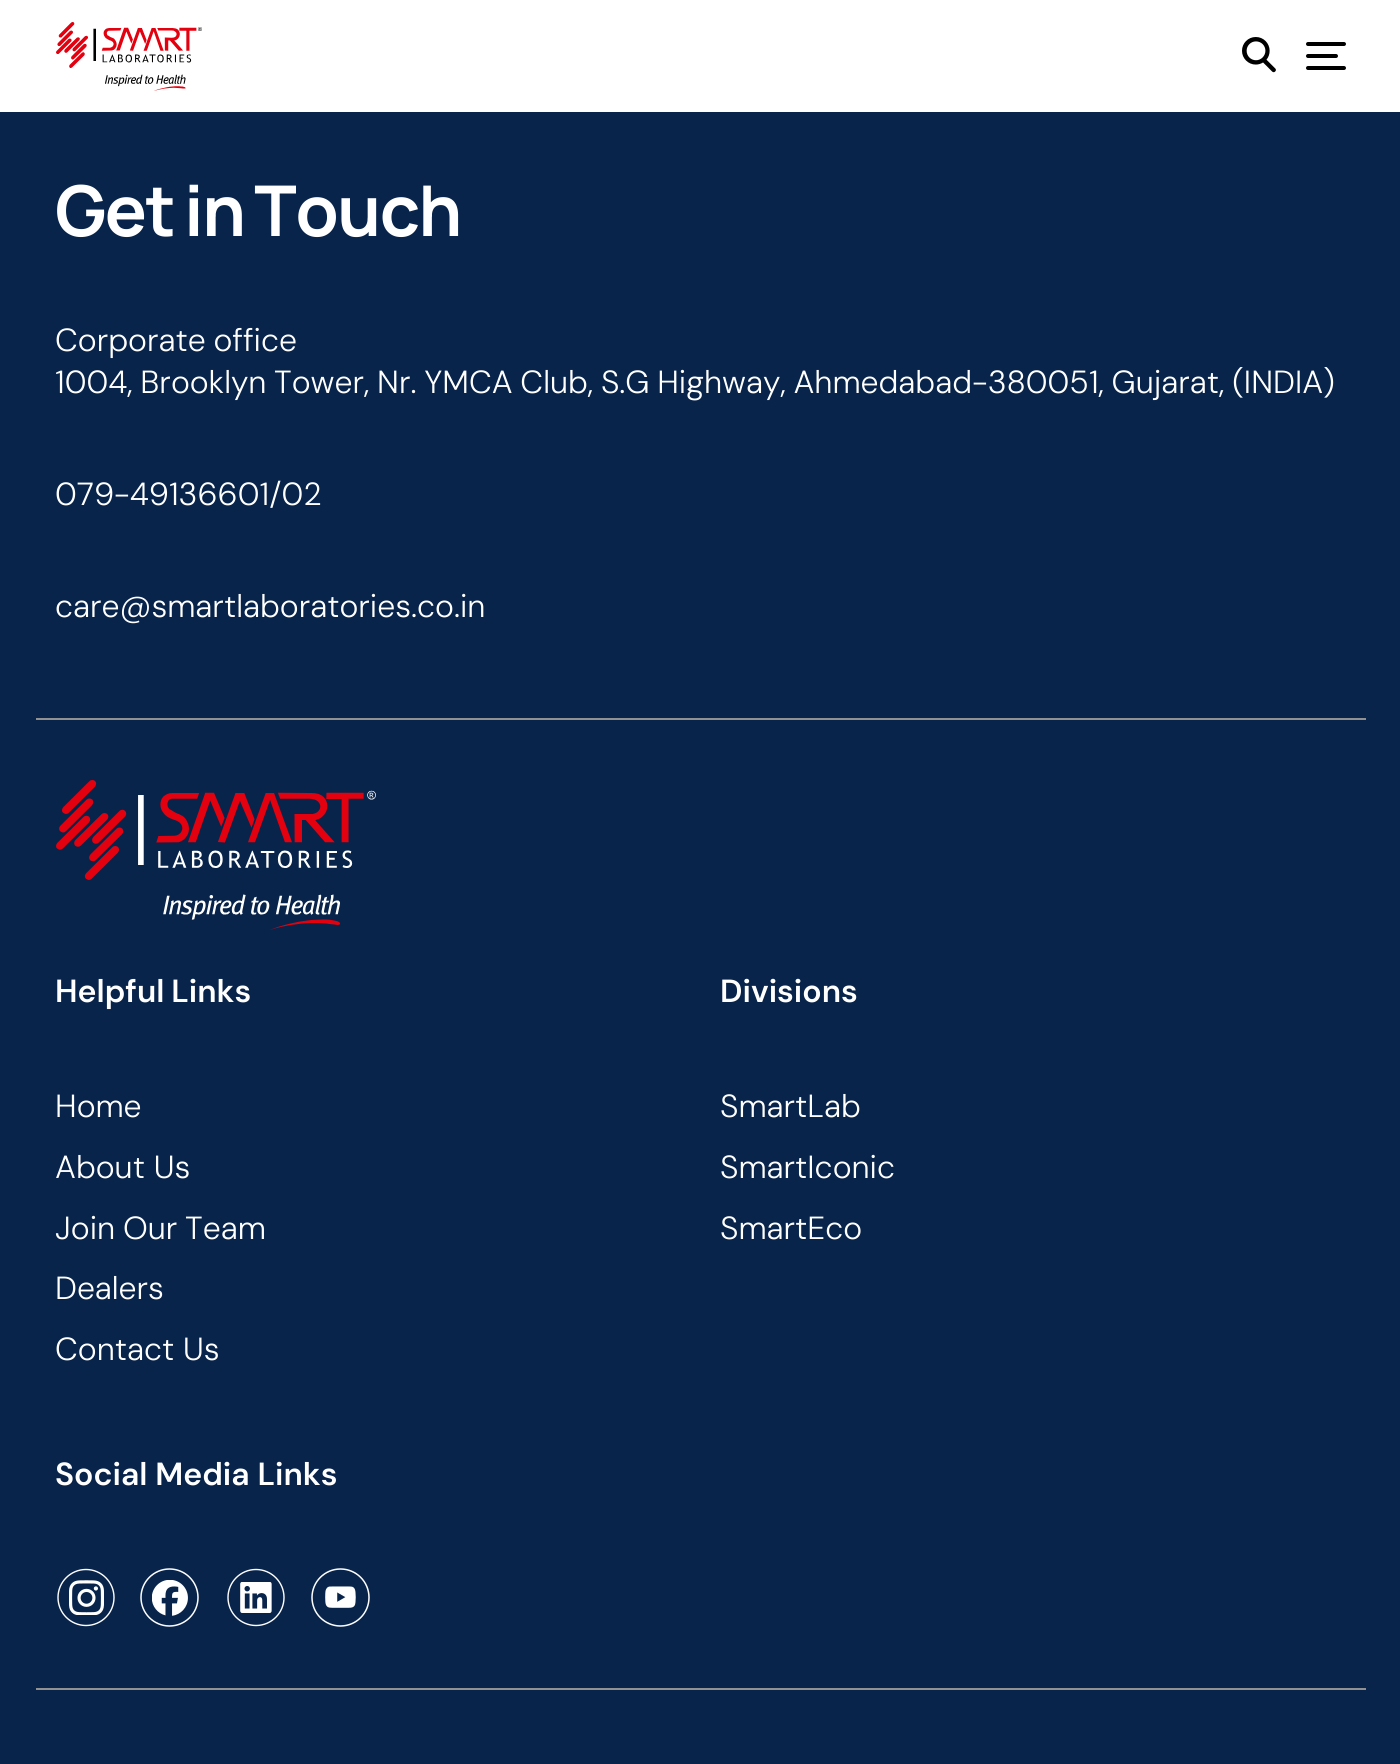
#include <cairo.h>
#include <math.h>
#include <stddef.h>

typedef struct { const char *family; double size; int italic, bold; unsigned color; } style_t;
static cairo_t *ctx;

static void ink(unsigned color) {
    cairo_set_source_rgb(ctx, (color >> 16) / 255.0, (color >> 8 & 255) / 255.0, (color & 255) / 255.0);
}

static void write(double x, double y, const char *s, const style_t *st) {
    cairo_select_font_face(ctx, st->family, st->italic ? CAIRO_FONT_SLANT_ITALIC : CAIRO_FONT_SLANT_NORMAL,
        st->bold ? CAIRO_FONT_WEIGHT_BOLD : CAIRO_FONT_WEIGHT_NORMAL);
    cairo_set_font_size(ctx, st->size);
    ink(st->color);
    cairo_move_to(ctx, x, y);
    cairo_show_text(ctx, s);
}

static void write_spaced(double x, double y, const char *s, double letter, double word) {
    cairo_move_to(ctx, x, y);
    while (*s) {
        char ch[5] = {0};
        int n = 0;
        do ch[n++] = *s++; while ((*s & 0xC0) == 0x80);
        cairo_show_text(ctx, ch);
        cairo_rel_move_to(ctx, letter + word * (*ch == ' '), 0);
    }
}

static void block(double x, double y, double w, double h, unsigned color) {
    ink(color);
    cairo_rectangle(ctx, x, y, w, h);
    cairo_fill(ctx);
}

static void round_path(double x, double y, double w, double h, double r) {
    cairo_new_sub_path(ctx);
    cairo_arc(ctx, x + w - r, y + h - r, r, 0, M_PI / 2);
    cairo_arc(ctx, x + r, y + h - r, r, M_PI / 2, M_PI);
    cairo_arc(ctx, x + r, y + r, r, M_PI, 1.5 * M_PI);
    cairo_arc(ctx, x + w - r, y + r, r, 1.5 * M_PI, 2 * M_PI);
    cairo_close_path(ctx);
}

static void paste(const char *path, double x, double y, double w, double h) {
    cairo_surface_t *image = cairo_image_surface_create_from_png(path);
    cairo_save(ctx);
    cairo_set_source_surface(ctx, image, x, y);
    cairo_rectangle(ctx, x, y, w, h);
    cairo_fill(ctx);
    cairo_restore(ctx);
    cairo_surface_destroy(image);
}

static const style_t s1 = {"DM Sans Light", 32, 0, 0, 0xffffff};
static const style_t s2 = {"DM Sans SemiBold", 32, 0, 0, 0xffffff};

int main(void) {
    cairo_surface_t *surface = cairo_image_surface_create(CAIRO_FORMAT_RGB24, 1400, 1764);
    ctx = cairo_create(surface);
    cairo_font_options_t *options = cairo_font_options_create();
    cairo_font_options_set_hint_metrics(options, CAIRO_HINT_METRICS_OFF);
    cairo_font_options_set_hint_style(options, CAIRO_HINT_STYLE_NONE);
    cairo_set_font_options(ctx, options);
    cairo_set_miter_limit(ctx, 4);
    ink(0xffffff);
    cairo_paint(ctx);
    paste("pic1.png", 56, 22, 146, 69);
    paste("pic2.png", 1242, 37, 34, 36);
    ink(0x000000);
    round_path(1306, 42, 40, 4, 2);
    cairo_fill(ctx);
    round_path(1306, 54, 32, 4, 2);
    cairo_fill(ctx);
    round_path(1306, 66, 40, 4, 2);
    cairo_fill(ctx);
    block(0, 112, 1400, 1652, 0x08244b);
    block(36, 718, 1330, 2, 0x919191);
    cairo_select_font_face(ctx, "Manrope", CAIRO_FONT_SLANT_NORMAL, CAIRO_FONT_WEIGHT_BOLD);
    cairo_set_font_size(ctx, 70);
    ink(0xffffff);
    write_spaced(55, 236, "Get in Touch", -1.4, -3);
    cairo_select_font_face(ctx, "DM Sans Light", CAIRO_FONT_SLANT_NORMAL, CAIRO_FONT_WEIGHT_NORMAL);
    cairo_set_font_size(ctx, 32);
    write_spaced(55, 351, "Corporate office", 0, -1);
    write_spaced(55, 393, "1004, Brooklyn Tower, Nr. YMCA Club, S.G Highway, Ahmedabad-380051, Gujarat, (INDIA)", 0, -1.1);
    write(55, 505, "079-49136601/02", &s1);
    write(55, 617, "care@smartlaboratories.co.in", &s1);
    block(36, 1688, 1330, 2, 0x919191);
    paste("pic3.png", 56, 780, 320, 150);
    cairo_select_font_face(ctx, "DM Sans SemiBold", CAIRO_FONT_SLANT_NORMAL, CAIRO_FONT_WEIGHT_NORMAL);
    ink(0xffffff);
    write_spaced(55, 1002, "Helpful Links", 0, -1);
    write(55, 1117, "Home", &s1);
    write(55, 1178, "About Us", &s1);
    write_spaced(55, 1239, "Join Our Team", 0, -1);
    write(55, 1299, "Dealers", &s1);
    write(55, 1360, "Contact Us", &s1);
    write(720, 1002, "Divisions", &s2);
    write(720, 1117, "SmartLab", &s1);
    write(720, 1178, "SmartIconic", &s1);
    write(720, 1239, "SmartEco", &s1);
    write(55, 1485, "Social Media Links", &s2);
    paste("pic4.png", 57, 1568, 58, 59);
    paste("pic5.png", 140, 1568, 59, 59);
    paste("pic6.png", 227, 1568, 58, 59);
    paste("pic7.png", 311, 1568, 59, 59);
    cairo_surface_write_to_png(surface, "screenshot.png");
    cairo_font_options_destroy(options);
    cairo_destroy(ctx);
    cairo_surface_destroy(surface);
    return 0;
}
